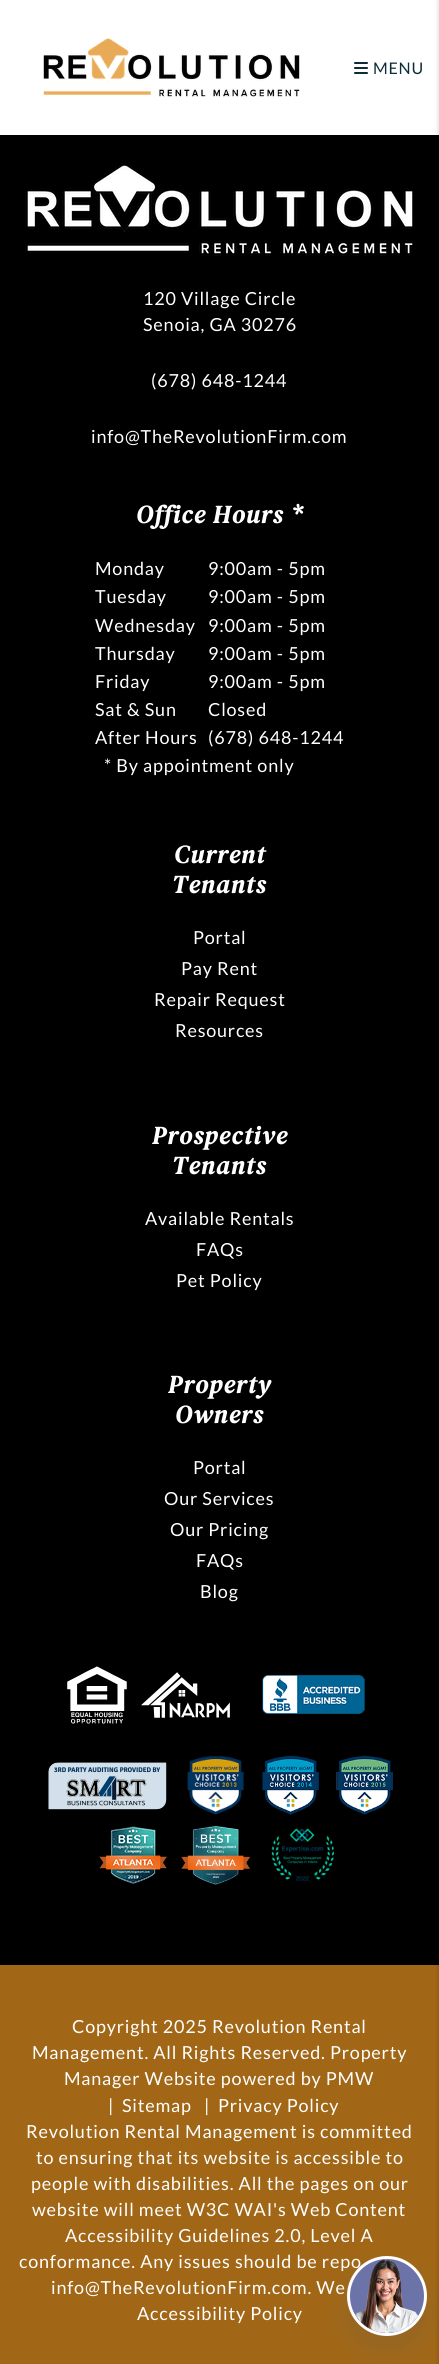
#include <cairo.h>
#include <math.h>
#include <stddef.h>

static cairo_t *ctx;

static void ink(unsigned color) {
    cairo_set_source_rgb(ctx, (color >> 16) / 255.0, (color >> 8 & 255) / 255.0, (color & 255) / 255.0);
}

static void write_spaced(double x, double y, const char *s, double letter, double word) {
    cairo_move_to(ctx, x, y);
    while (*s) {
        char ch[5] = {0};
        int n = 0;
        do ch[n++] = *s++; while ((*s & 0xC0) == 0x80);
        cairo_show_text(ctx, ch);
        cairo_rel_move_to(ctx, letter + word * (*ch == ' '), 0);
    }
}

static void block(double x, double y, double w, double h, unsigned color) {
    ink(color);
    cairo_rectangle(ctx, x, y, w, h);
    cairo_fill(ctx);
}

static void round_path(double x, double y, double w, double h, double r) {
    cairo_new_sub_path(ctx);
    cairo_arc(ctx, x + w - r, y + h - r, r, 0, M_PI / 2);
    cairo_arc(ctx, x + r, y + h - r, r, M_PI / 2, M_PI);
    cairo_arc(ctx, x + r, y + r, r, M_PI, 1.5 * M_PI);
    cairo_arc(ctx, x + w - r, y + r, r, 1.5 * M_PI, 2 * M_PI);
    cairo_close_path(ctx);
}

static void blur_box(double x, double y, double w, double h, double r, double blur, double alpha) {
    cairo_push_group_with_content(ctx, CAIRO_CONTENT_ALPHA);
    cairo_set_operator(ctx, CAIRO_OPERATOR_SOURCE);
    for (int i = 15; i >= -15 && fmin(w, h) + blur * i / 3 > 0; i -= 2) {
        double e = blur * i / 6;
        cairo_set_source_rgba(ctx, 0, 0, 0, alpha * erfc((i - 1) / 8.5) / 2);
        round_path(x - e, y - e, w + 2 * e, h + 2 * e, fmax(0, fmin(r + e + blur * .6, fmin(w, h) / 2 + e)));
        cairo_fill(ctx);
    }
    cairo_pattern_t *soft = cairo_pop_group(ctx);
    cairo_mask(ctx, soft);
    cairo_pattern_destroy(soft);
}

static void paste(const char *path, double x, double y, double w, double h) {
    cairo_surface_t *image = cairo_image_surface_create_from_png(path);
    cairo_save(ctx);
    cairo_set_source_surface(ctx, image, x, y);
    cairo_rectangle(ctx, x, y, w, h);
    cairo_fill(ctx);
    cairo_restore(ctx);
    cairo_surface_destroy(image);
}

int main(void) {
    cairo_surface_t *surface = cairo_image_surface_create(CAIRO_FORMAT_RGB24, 439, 2364);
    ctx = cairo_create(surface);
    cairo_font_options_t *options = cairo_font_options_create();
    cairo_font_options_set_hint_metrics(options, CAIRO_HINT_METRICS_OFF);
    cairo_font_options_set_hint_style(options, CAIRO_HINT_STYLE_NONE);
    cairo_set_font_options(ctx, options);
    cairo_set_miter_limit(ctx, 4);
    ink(0x000000);
    cairo_paint(ctx);
    block(0, 0, 439, 135, 0xffffff);
    paste("pic1.png", 43, 38, 257, 59);
    paste("pic2.png", 354, 62, 14, 12);
    cairo_select_font_face(ctx, "Lato", CAIRO_FONT_SLANT_NORMAL, CAIRO_FONT_WEIGHT_NORMAL);
    cairo_set_font_size(ctx, 16);
    ink(0x0e2c37);
    write_spaced(373, 74, "MENU", 0.8, 0);
    block(0, 1965, 439, 399, 0xa16717);
    ink(0x000000);
    blur_box(439, 1, 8, 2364, 0, 2.5, 0.2);
    paste("pic3.png", 25, 165, 388, 91);
    cairo_set_font_size(ctx, 18);
    ink(0xffffff);
    write_spaced(143, 305, "120 Village Circle", 0.8, 0);
    write_spaced(143, 331, "Senoia, GA 30276", 0.8, 0);
    write_spaced(151, 387, "(678) 648-1244", 0.8, 0);
    write_spaced(91, 443, "info@TheRevolutionFirm.com", 0.8, 0);
    cairo_select_font_face(ctx, "DM Serif Text", CAIRO_FONT_SLANT_ITALIC, CAIRO_FONT_WEIGHT_BOLD);
    cairo_set_font_size(ctx, 25);
    write_spaced(136, 523, "Office Hours *", 1.25, 0);
    cairo_select_font_face(ctx, "Lato", CAIRO_FONT_SLANT_NORMAL, CAIRO_FONT_WEIGHT_NORMAL);
    cairo_set_font_size(ctx, 18);
    write_spaced(95, 575, "Monday", 0.8, 0);
    write_spaced(208, 575, "9:00am - 5pm", 0.8, 0);
    write_spaced(95, 603, "Tuesday", 0.8, 0);
    write_spaced(208, 603, "9:00am - 5pm", 0.8, 0);
    write_spaced(95, 632, "Wednesday", 0.8, 0);
    write_spaced(208, 632, "9:00am - 5pm", 0.8, 0);
    write_spaced(95, 660, "Thursday", 0.8, 0);
    write_spaced(208, 660, "9:00am - 5pm", 0.8, 0);
    write_spaced(95, 688, "Friday", 0.8, 0);
    write_spaced(208, 688, "9:00am - 5pm", 0.8, 0);
    write_spaced(95, 716, "Sat & Sun", 0.8, 0);
    write_spaced(208, 716, "Closed", 0.8, 0);
    write_spaced(95, 744, "After Hours", 0.8, 0);
    write_spaced(208, 744, "(678) 648-1244", 0.8, 0);
    write_spaced(104, 772, "* By appointment only", 0.8, 0);
    cairo_select_font_face(ctx, "DM Serif Text", CAIRO_FONT_SLANT_ITALIC, CAIRO_FONT_WEIGHT_BOLD);
    cairo_set_font_size(ctx, 25);
    write_spaced(174, 863, "Current", 1.25, 0);
    write_spaced(172, 893, "Tenants", 1.25, 0);
    cairo_select_font_face(ctx, "Lato", CAIRO_FONT_SLANT_NORMAL, CAIRO_FONT_WEIGHT_NORMAL);
    cairo_set_font_size(ctx, 18);
    write_spaced(193, 944, "Portal", 0.8, 0);
    write_spaced(181, 975, "Pay Rent", 0.8, 0);
    write_spaced(154, 1006, "Repair Request", 0.8, 0);
    write_spaced(175, 1037, "Resources", 0.8, 0);
    cairo_select_font_face(ctx, "DM Serif Text", CAIRO_FONT_SLANT_ITALIC, CAIRO_FONT_WEIGHT_BOLD);
    cairo_set_font_size(ctx, 25);
    write_spaced(152, 1144, "Prospective", 1.25, 0);
    write_spaced(172, 1174, "Tenants", 1.25, 0);
    cairo_select_font_face(ctx, "Lato", CAIRO_FONT_SLANT_NORMAL, CAIRO_FONT_WEIGHT_NORMAL);
    cairo_set_font_size(ctx, 18);
    write_spaced(145, 1225, "Available Rentals", 0.8, 0);
    write_spaced(196, 1256, "FAQs", 0.8, 0);
    write_spaced(176, 1287, "Pet Policy", 0.8, 0);
    cairo_select_font_face(ctx, "DM Serif Text", CAIRO_FONT_SLANT_ITALIC, CAIRO_FONT_WEIGHT_BOLD);
    cairo_set_font_size(ctx, 25);
    write_spaced(168, 1393, "Property", 1.25, 0);
    write_spaced(175, 1423, "Owners", 1.25, 0);
    cairo_select_font_face(ctx, "Lato", CAIRO_FONT_SLANT_NORMAL, CAIRO_FONT_WEIGHT_NORMAL);
    cairo_set_font_size(ctx, 18);
    write_spaced(193, 1474, "Portal", 0.8, 0);
    write_spaced(164, 1505, "Our Services", 0.8, 0);
    write_spaced(170, 1536, "Our Pricing", 0.8, 0);
    write_spaced(196, 1567, "FAQs", 0.8, 0);
    write_spaced(200, 1598, "Blog", 0.8, 0);
    paste("pic4.png", 67, 1666, 60, 58);
    paste("pic5.png", 141, 1672, 89, 46);
    paste("pic6.png", 262, 1674, 103, 40);
    paste("pic7.png", 48, 1762, 119, 48);
    paste("pic8.png", 187, 1755, 57, 60);
    paste("pic9.png", 262, 1755, 57, 60);
    paste("pic10.png", 336, 1755, 57, 60);
    paste("pic11.png", 99, 1826, 68, 58);
    paste("pic12.png", 181, 1825, 69, 60);
    paste("pic13.png", 271, 1828, 63, 53);
    write_spaced(72, 2033, "Copyright 2025 Revolution Rental", 0.8, 0);
    write_spaced(32, 2059, "Management. All Rights Reserved. Property", 0.8, 0);
    write_spaced(64, 2085, "Manager Website powered by PMW", 0.8, 0);
    write_spaced(108, 2112, "|", 0.8, 0);
    write_spaced(122, 2112, "Sitemap", 0.8, 0);
    write_spaced(204, 2112, "|", 0.8, 0);
    write_spaced(218, 2112, "Privacy Policy", 0.8, 0);
    write_spaced(26, 2138, "Revolution Rental Management is committed", 0.8, 0);
    write_spaced(36, 2164, "to ensuring that its website is accessible to", 0.8, 0);
    write_spaced(31, 2190, "people with disabilities. All the pages on our", 0.8, 0);
    write_spaced(32, 2216, "website will meet W3C WAI's Web Content", 0.8, 0);
    write_spaced(65, 2242, "Accessibility Guidelines 2.0, Level A", 0.8, 0);
    write_spaced(19, 2268, "conformance. Any issues should be repo", 0.8, 0);
    write_spaced(51, 2294, "info@TheRevolutionFirm.com. We", 0.8, 0);
    write_spaced(137, 2320, "Accessibility Policy", 0.8, 0);
    ink(0x545f6f);
    blur_box(347, 2272, 80, 80, 40, 12, 0.16);
    ink(0x6c73a8);
    cairo_arc(ctx, 387, 2296, 38.5, 0, 2 * M_PI);
    cairo_fill_preserve(ctx);
    ink(0xffffff);
    cairo_set_line_width(ctx, 3);
    cairo_stroke(ctx);
    paste("pic14.png", 355, 2259, 63, 74);
    cairo_surface_write_to_png(surface, "screenshot.png");
    cairo_font_options_destroy(options);
    cairo_destroy(ctx);
    cairo_surface_destroy(surface);
    return 0;
}
